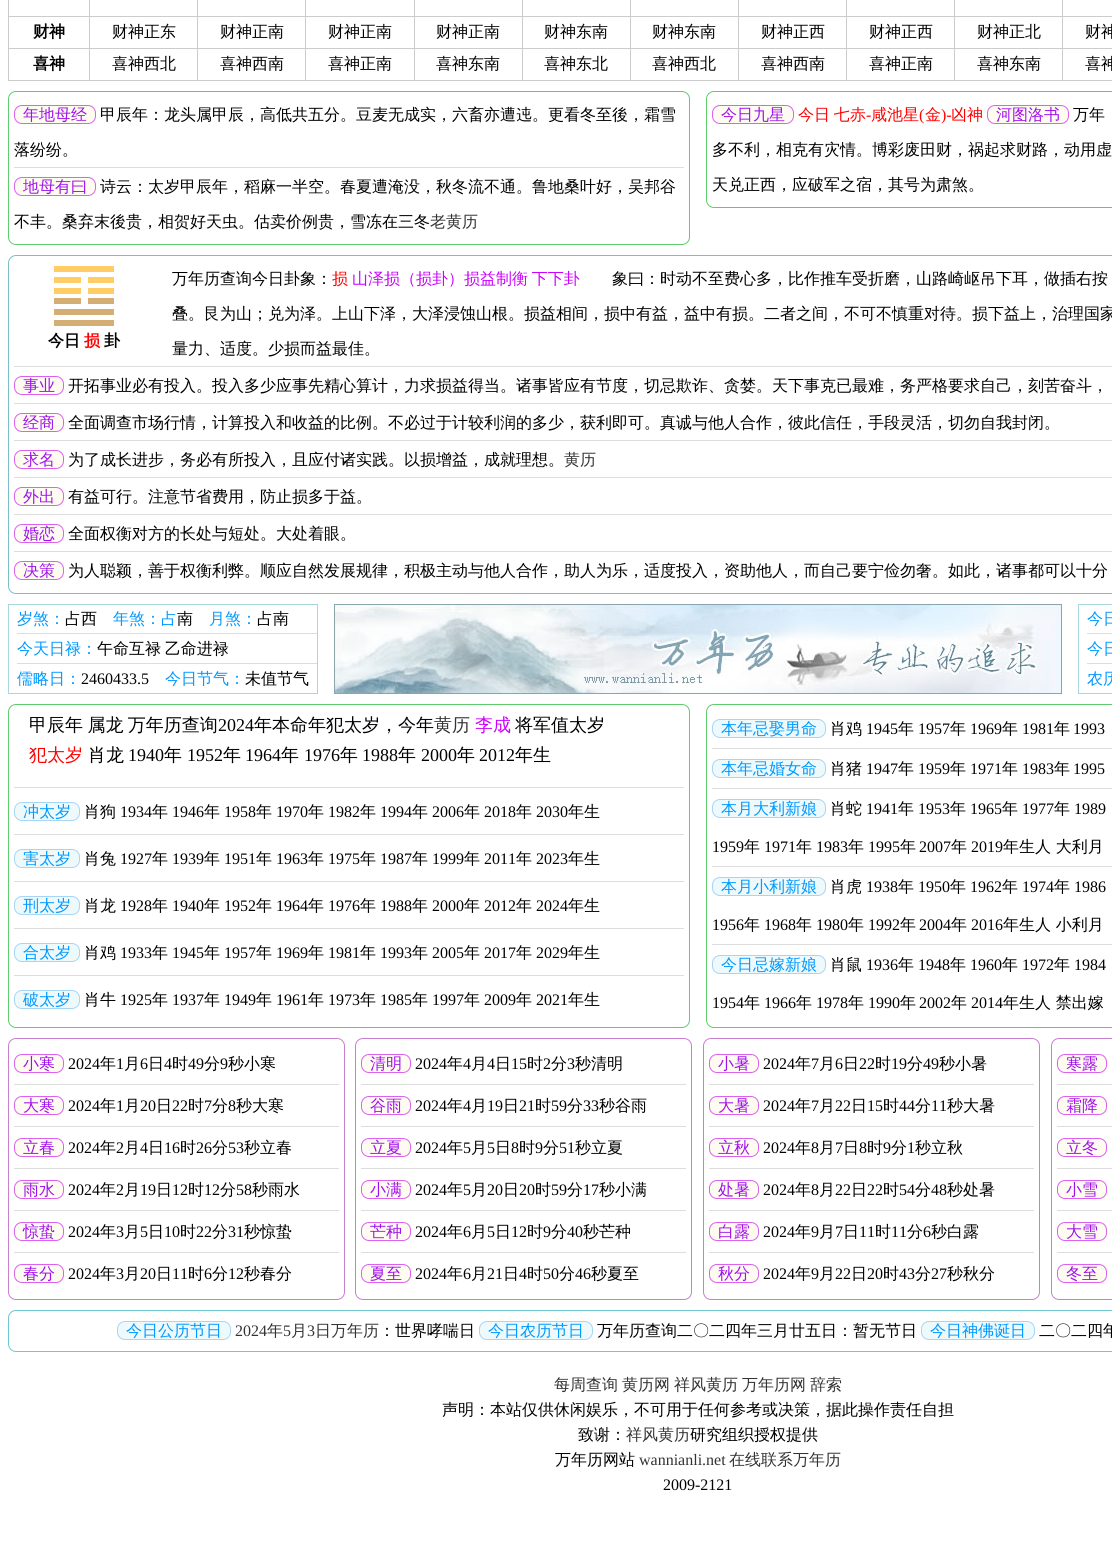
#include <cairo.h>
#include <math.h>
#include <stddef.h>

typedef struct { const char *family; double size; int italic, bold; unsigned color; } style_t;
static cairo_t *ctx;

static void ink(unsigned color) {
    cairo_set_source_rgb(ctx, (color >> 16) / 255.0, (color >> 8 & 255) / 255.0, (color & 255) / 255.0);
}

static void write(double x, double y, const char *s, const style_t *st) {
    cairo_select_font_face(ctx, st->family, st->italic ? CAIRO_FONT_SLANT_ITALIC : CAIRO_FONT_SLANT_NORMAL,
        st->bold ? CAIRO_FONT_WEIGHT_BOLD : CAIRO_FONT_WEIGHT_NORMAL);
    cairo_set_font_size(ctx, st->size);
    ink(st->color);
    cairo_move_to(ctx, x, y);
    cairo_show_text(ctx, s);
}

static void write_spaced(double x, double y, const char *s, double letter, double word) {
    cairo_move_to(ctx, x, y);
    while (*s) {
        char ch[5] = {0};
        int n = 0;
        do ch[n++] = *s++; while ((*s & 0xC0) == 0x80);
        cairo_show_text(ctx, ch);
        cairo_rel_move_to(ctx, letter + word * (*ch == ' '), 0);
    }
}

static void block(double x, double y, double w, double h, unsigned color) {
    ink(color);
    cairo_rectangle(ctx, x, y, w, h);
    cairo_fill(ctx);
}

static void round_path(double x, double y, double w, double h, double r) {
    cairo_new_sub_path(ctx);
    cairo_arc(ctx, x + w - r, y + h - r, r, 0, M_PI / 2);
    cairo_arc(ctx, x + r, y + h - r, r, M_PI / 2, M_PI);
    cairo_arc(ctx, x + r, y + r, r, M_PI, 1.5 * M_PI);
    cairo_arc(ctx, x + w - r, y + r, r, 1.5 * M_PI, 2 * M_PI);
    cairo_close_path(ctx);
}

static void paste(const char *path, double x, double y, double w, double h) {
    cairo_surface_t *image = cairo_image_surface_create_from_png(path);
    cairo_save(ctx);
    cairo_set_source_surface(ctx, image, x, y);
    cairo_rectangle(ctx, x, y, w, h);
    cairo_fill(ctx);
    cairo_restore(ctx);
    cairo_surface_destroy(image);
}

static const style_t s1 = {"WenQuanYi Zen Hei", 16, 0, 1, 0x000000};
static const style_t s2 = {"WenQuanYi Zen Hei Medium", 16, 0, 0, 0x000000};
static const style_t s3 = {"WenQuanYi Zen Hei Medium", 16, 0, 0, 0xa111ee};
static const style_t s4 = {"WenQuanYi Zen Hei Medium", 16, 0, 0, 0x333333};
static const style_t s5 = {"Liberation Serif", 16, 0, 0, 0xff0000};
static const style_t s6 = {"WenQuanYi Zen Hei Medium", 16, 0, 0, 0xff0000};
static const style_t s7 = {"WenQuanYi Zen Hei", 16, 0, 1, 0xff0000};
static const style_t s8 = {"WenQuanYi Zen Hei Medium", 16, 0, 0, 0x0099ff};
static const style_t s9 = {"Liberation Serif", 16, 0, 0, 0x000000};
static const style_t s10 = {"Liberation Serif", 18, 0, 0, 0x000000};
static const style_t s11 = {"WenQuanYi Zen Hei Medium", 18, 0, 0, 0x000000};
static const style_t s12 = {"WenQuanYi Zen Hei Medium", 18, 0, 0, 0x333333};
static const style_t s13 = {"WenQuanYi Zen Hei Medium", 18, 0, 0, 0xcc00ff};
static const style_t s14 = {"WenQuanYi Zen Hei Medium", 18, 0, 0, 0xff0000};
static const style_t s15 = {"Liberation Serif", 16, 0, 0, 0x333333};

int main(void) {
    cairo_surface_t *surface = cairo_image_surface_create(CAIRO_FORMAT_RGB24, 1112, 1565);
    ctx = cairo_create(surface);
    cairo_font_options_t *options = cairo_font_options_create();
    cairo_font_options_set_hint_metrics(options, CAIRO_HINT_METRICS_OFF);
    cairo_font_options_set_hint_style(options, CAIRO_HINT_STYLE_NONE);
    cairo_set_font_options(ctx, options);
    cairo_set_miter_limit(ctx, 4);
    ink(0xffffff);
    cairo_paint(ctx);
    block(8, 80, 1104, 1, 0xcccccc);
    block(8, 0, 1, 81, 0xcccccc);
    block(1062, 16, 50, 1, 0xcccccc);
    block(1062, 48, 50, 1, 0xcccccc);
    block(1062, 48, 1, 33, 0xcccccc);
    block(954, 48, 109, 1, 0xcccccc);
    block(1062, 16, 1, 33, 0xcccccc);
    block(954, 16, 109, 1, 0xcccccc);
    block(954, 48, 1, 33, 0xcccccc);
    block(846, 48, 109, 1, 0xcccccc);
    block(954, 16, 1, 33, 0xcccccc);
    block(846, 16, 109, 1, 0xcccccc);
    block(846, 48, 1, 33, 0xcccccc);
    block(738, 48, 109, 1, 0xcccccc);
    block(846, 16, 1, 33, 0xcccccc);
    block(738, 16, 109, 1, 0xcccccc);
    block(738, 48, 1, 33, 0xcccccc);
    block(630, 48, 109, 1, 0xcccccc);
    block(738, 16, 1, 33, 0xcccccc);
    block(630, 16, 109, 1, 0xcccccc);
    block(630, 48, 1, 33, 0xcccccc);
    block(522, 48, 109, 1, 0xcccccc);
    block(630, 16, 1, 33, 0xcccccc);
    block(522, 16, 109, 1, 0xcccccc);
    block(522, 48, 1, 33, 0xcccccc);
    block(414, 48, 109, 1, 0xcccccc);
    block(522, 16, 1, 33, 0xcccccc);
    block(414, 16, 109, 1, 0xcccccc);
    block(414, 48, 1, 33, 0xcccccc);
    block(305, 48, 110, 1, 0xcccccc);
    block(414, 16, 1, 33, 0xcccccc);
    block(305, 16, 110, 1, 0xcccccc);
    block(305, 48, 1, 33, 0xcccccc);
    block(197, 48, 109, 1, 0xcccccc);
    block(305, 16, 1, 33, 0xcccccc);
    block(197, 16, 109, 1, 0xcccccc);
    block(197, 48, 1, 33, 0xcccccc);
    block(89, 48, 109, 1, 0xcccccc);
    block(197, 16, 1, 33, 0xcccccc);
    block(89, 16, 109, 1, 0xcccccc);
    block(89, 48, 1, 33, 0xcccccc);
    block(8, 48, 82, 1, 0xcccccc);
    block(89, 16, 1, 33, 0xcccccc);
    block(8, 16, 82, 1, 0xcccccc);
    block(89, 0, 1, 17, 0xcccccc);
    block(197, 0, 1, 17, 0xcccccc);
    block(305, 0, 1, 17, 0xcccccc);
    block(414, 0, 1, 17, 0xcccccc);
    block(522, 0, 1, 17, 0xcccccc);
    block(630, 0, 1, 17, 0xcccccc);
    block(738, 0, 1, 17, 0xcccccc);
    block(846, 0, 1, 17, 0xcccccc);
    block(954, 0, 1, 17, 0xcccccc);
    block(1062, 0, 1, 17, 0xcccccc);
    write(33, 37, "财神", &s1);
    write(112, 37, "财神正东", &s2);
    write(220, 37, "财神正南", &s2);
    write(328, 37, "财神正南", &s2);
    write(436, 37, "财神正南", &s2);
    write(544, 37, "财神东南", &s2);
    write(652, 37, "财神东南", &s2);
    write(761, 37, "财神正西", &s2);
    write(869, 37, "财神正西", &s2);
    write(977, 37, "财神正北", &s2);
    write(1085, 37, "财神", &s2);
    write(33, 69, "喜神", &s1);
    write(112, 69, "喜神西北", &s2);
    write(220, 69, "喜神西南", &s2);
    write(328, 69, "喜神正南", &s2);
    write(436, 69, "喜神东南", &s2);
    write(544, 69, "喜神东北", &s2);
    write(652, 69, "喜神西北", &s2);
    write(761, 69, "喜神西南", &s2);
    write(869, 69, "喜神正南", &s2);
    write(977, 69, "喜神东南", &s2);
    write(1085, 69, "喜神", &s2);
    round_path(8.5, 91.5, 681, 153, 7.5);
    ink(0x60cc6e);
    cairo_set_line_width(ctx, 1);
    cairo_stroke(ctx);
    ink(0xfefbf1);
    round_path(14.5, 105.5, 81, 18, 7.5);
    cairo_fill_preserve(ctx);
    ink(0xdc61ef);
    cairo_stroke(ctx);
    write(23, 120, "年地母经", &s3);
    write(100, 120, "甲辰年：龙头属甲辰，高低共五分。豆麦无成实，六畜亦遭迍。更看冬至後，霜雪", &s2);
    write(14, 155, "落纷纷。", &s2);
    block(14, 167, 670, 1, 0xdddddd);
    ink(0xfefbf1);
    round_path(14.5, 177.5, 81, 18, 7.5);
    cairo_fill_preserve(ctx);
    ink(0xdc61ef);
    cairo_stroke(ctx);
    write(23, 192, "地母有曰", &s3);
    write(100, 192, "诗云：太岁甲辰年，稻麻一半空。春夏遭淹没，秋冬流不通。鲁地桑叶好，吴邦谷", &s2);
    write(14, 227, "不丰。桑弃末後贵，相贺好天虫。估卖价例贵，雪冻在三冬", &s2);
    write(430, 227, "老黄历", &s4);
    round_path(706.5, 91.5, 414, 116, 7.5);
    ink(0x60cc6e);
    cairo_stroke(ctx);
    ink(0xfefbf1);
    round_path(712.5, 105.5, 81, 18, 7.5);
    cairo_fill_preserve(ctx);
    ink(0xdc61ef);
    cairo_stroke(ctx);
    write(721, 120, "今日九星", &s3);
    ink(0xff0000);
    write_spaced(798, 120, "今日 七赤", 0, -1);
    write(866, 120, "-", &s5);
    write(871, 120, "咸池星", &s6);
    write(919, 120, "(", &s5);
    write(925, 120, "金", &s6);
    write(941, 120, ")-", &s5);
    write(951, 120, "凶神", &s6);
    ink(0xfefbf1);
    round_path(987.5, 105.5, 81, 18, 7.5);
    cairo_fill_preserve(ctx);
    ink(0xdc61ef);
    cairo_stroke(ctx);
    write(996, 120, "河图洛书", &s3);
    write(1073, 120, "万年", &s2);
    write(712, 155, "多不利，相克有灾情。博彩废田财，祸起求财路，动用虚", &s2);
    write(712, 190, "天兑正西，应破军之宿，其号为肃煞。", &s2);
    round_path(8.5, 255.5, 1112, 338, 7.5);
    ink(0x7bbec6);
    cairo_stroke(ctx);
    paste("pic1.png", 54, 266, 60, 60);
    write(48, 346, "今日", &s1);
    write(84, 346, "损", &s7);
    write(104, 346, "卦", &s1);
    write(172, 284, "万年历查询今日卦象：", &s2);
    write(332, 284, "损", &s6);
    ink(0xcc00ff);
    write_spaced(352, 284, "山泽损（损卦）损益制衡 下下卦", 0, -1);
    write(612, 284, "象曰：时动不至费心多，比作推车受折磨，山路崎岖吊下耳，做插右按", &s2);
    write(172, 319, "叠。艮为山；兑为泽。上山下泽，大泽浸蚀山根。损益相间，损中有益，益中有损。二者之间，不可不慎重对待。损下益上，治理国家", &s2);
    write(172, 354, "量力、适度。少损而益最佳。", &s2);
    block(14, 366, 1098, 1, 0xdddddd);
    ink(0xfefbf1);
    round_path(14.5, 376.5, 49, 18, 7.5);
    cairo_fill_preserve(ctx);
    ink(0xdc61ef);
    cairo_stroke(ctx);
    write(23, 391, "事业", &s3);
    write(68, 391, "开拓事业必有投入。投入多少应事先精心算计，力求损益得当。诸事皆应有节度，切忌欺诈、贪婪。天下事克已最难，务严格要求自己，刻苦奋斗，", &s2);
    block(14, 403, 1098, 1, 0xdddddd);
    ink(0xfefbf1);
    round_path(14.5, 413.5, 49, 18, 7.5);
    cairo_fill_preserve(ctx);
    ink(0xdc61ef);
    cairo_stroke(ctx);
    write(23, 428, "经商", &s3);
    write(68, 428, "全面调查市场行情，计算投入和收益的比例。不必过于计较利润的多少，获利即可。真诚与他人合作，彼此信任，手段灵活，切勿自我封闭。", &s2);
    block(14, 440, 1098, 1, 0xdddddd);
    ink(0xfefbf1);
    round_path(14.5, 450.5, 49, 18, 7.5);
    cairo_fill_preserve(ctx);
    ink(0xdc61ef);
    cairo_stroke(ctx);
    write(23, 465, "求名", &s3);
    write(68, 465, "为了成长进步，务必有所投入，且应付诸实践。以损增益，成就理想。", &s2);
    write(564, 465, "黄历", &s4);
    block(14, 477, 1098, 1, 0xdddddd);
    ink(0xfefbf1);
    round_path(14.5, 487.5, 49, 18, 7.5);
    cairo_fill_preserve(ctx);
    ink(0xdc61ef);
    cairo_stroke(ctx);
    write(23, 502, "外出", &s3);
    write(68, 502, "有益可行。注意节省费用，防止损多于益。", &s2);
    block(14, 514, 1098, 1, 0xdddddd);
    ink(0xfefbf1);
    round_path(14.5, 524.5, 49, 18, 7.5);
    cairo_fill_preserve(ctx);
    ink(0xdc61ef);
    cairo_stroke(ctx);
    write(23, 539, "婚恋", &s3);
    write(68, 539, "全面权衡对方的长处与短处。大处着眼。", &s2);
    block(14, 551, 1098, 1, 0xdddddd);
    ink(0xfefbf1);
    round_path(14.5, 561.5, 49, 18, 7.5);
    cairo_fill_preserve(ctx);
    ink(0xdc61ef);
    cairo_stroke(ctx);
    write(23, 576, "决策", &s3);
    write(68, 576, "为人聪颖，善于权衡利弊。顺应自然发展规律，积极主动与他人合作，助人为乐，适度投入，资助他人，而自己要宁俭勿奢。如此，诸事都可以十分", &s2);
    cairo_rectangle(ctx, 8.5, 604.5, 309, 89);
    ink(0xa7d8de);
    cairo_stroke(ctx);
    write(17, 624, "岁煞：", &s8);
    write(65, 624, "占西", &s2);
    write(113, 624, "年煞：占", &s8);
    write(177, 624, "南", &s2);
    write(209, 624, "月煞：", &s8);
    write(257, 624, "占南", &s2);
    block(17, 633, 300, 1, 0xdddddd);
    write(17, 654, "今天日禄：", &s8);
    ink(0x000000);
    write_spaced(97, 654, "午命互禄 乙命进禄", 0, -1);
    block(17, 663, 300, 1, 0xdddddd);
    write(17, 684, "儒略日：", &s8);
    write(81, 684, "2460433.5", &s9);
    write(165, 684, "今日节气：", &s8);
    write(245, 684, "未值节气", &s2);
    paste("pic2.png", 334, 604, 728, 90);
    cairo_rectangle(ctx, 1078.5, 604.5, 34, 89);
    ink(0xa7d8de);
    cairo_stroke(ctx);
    write(1087, 624, "今日", &s8);
    block(1087, 633, 25, 1, 0xdddddd);
    write(1087, 654, "今日", &s8);
    block(1087, 663, 25, 1, 0xdddddd);
    write(1087, 684, "农历", &s8);
    round_path(8.5, 704.5, 681, 323, 7.5);
    ink(0x60cc6e);
    cairo_stroke(ctx);
    cairo_set_font_size(ctx, 18);
    ink(0x000000);
    write_spaced(29, 731, "甲辰年 属龙 万年历查询", 0, -1);
    write(218, 731, "2024", &s10);
    write(254, 731, "年本命年犯太岁，今年", &s11);
    write(434, 731, "黄历", &s12);
    write(475, 731, "李成", &s13);
    write(515, 731, "将军值太岁", &s11);
    write(29, 761, "犯太岁", &s14);
    write(88, 761, "肖龙", &s11);
    write(128, 761, "1940", &s10);
    write(164, 761, "年", &s11);
    write(187, 761, "1952", &s10);
    write(223, 761, "年", &s11);
    write(245, 761, "1964", &s10);
    write(281, 761, "年", &s11);
    write(304, 761, "1976", &s10);
    write(340, 761, "年", &s11);
    write(362, 761, "1988", &s10);
    write(398, 761, "年", &s11);
    write(421, 761, "2000", &s10);
    write(457, 761, "年", &s11);
    write(479, 761, "2012", &s10);
    write(515, 761, "年生", &s11);
    block(14, 787, 670, 1, 0xdddddd);
    ink(0xeef9fc);
    round_path(14.5, 802.5, 65, 18, 7.5);
    cairo_fill_preserve(ctx);
    ink(0xa8d5f3);
    cairo_stroke(ctx);
    write(23, 817, "冲太岁", &s8);
    write(84, 817, "肖狗", &s2);
    write(120, 817, "1934", &s9);
    write(152, 817, "年", &s2);
    write(172, 817, "1946", &s9);
    write(204, 817, "年", &s2);
    write(224, 817, "1958", &s9);
    write(256, 817, "年", &s2);
    write(276, 817, "1970", &s9);
    write(308, 817, "年", &s2);
    write(328, 817, "1982", &s9);
    write(360, 817, "年", &s2);
    write(380, 817, "1994", &s9);
    write(412, 817, "年", &s2);
    write(432, 817, "2006", &s9);
    write(464, 817, "年", &s2);
    write(484, 817, "2018", &s9);
    write(516, 817, "年", &s2);
    write(536, 817, "2030", &s9);
    write(568, 817, "年生", &s2);
    block(14, 834, 670, 1, 0xdddddd);
    ink(0xeef9fc);
    round_path(14.5, 849.5, 65, 18, 7.5);
    cairo_fill_preserve(ctx);
    ink(0xa8d5f3);
    cairo_stroke(ctx);
    write(23, 864, "害太岁", &s8);
    write(84, 864, "肖兔", &s2);
    write(120, 864, "1927", &s9);
    write(152, 864, "年", &s2);
    write(172, 864, "1939", &s9);
    write(204, 864, "年", &s2);
    write(224, 864, "1951", &s9);
    write(256, 864, "年", &s2);
    write(276, 864, "1963", &s9);
    write(308, 864, "年", &s2);
    write(328, 864, "1975", &s9);
    write(360, 864, "年", &s2);
    write(380, 864, "1987", &s9);
    write(412, 864, "年", &s2);
    write(432, 864, "1999", &s9);
    write(464, 864, "年", &s2);
    write(484, 864, "2011", &s9);
    write(516, 864, "年", &s2);
    write(536, 864, "2023", &s9);
    write(568, 864, "年生", &s2);
    block(14, 881, 670, 1, 0xdddddd);
    ink(0xeef9fc);
    round_path(14.5, 896.5, 65, 18, 7.5);
    cairo_fill_preserve(ctx);
    ink(0xa8d5f3);
    cairo_stroke(ctx);
    write(23, 911, "刑太岁", &s8);
    write(84, 911, "肖龙", &s2);
    write(120, 911, "1928", &s9);
    write(152, 911, "年", &s2);
    write(172, 911, "1940", &s9);
    write(204, 911, "年", &s2);
    write(224, 911, "1952", &s9);
    write(256, 911, "年", &s2);
    write(276, 911, "1964", &s9);
    write(308, 911, "年", &s2);
    write(328, 911, "1976", &s9);
    write(360, 911, "年", &s2);
    write(380, 911, "1988", &s9);
    write(412, 911, "年", &s2);
    write(432, 911, "2000", &s9);
    write(464, 911, "年", &s2);
    write(484, 911, "2012", &s9);
    write(516, 911, "年", &s2);
    write(536, 911, "2024", &s9);
    write(568, 911, "年生", &s2);
    block(14, 928, 670, 1, 0xdddddd);
    ink(0xeef9fc);
    round_path(14.5, 943.5, 65, 18, 7.5);
    cairo_fill_preserve(ctx);
    ink(0xa8d5f3);
    cairo_stroke(ctx);
    write(23, 958, "合太岁", &s8);
    write(84, 958, "肖鸡", &s2);
    write(120, 958, "1933", &s9);
    write(152, 958, "年", &s2);
    write(172, 958, "1945", &s9);
    write(204, 958, "年", &s2);
    write(224, 958, "1957", &s9);
    write(256, 958, "年", &s2);
    write(276, 958, "1969", &s9);
    write(308, 958, "年", &s2);
    write(328, 958, "1981", &s9);
    write(360, 958, "年", &s2);
    write(380, 958, "1993", &s9);
    write(412, 958, "年", &s2);
    write(432, 958, "2005", &s9);
    write(464, 958, "年", &s2);
    write(484, 958, "2017", &s9);
    write(516, 958, "年", &s2);
    write(536, 958, "2029", &s9);
    write(568, 958, "年生", &s2);
    block(14, 975, 670, 1, 0xdddddd);
    ink(0xeef9fc);
    round_path(14.5, 990.5, 65, 18, 7.5);
    cairo_fill_preserve(ctx);
    ink(0xa8d5f3);
    cairo_stroke(ctx);
    write(23, 1005, "破太岁", &s8);
    write(84, 1005, "肖牛", &s2);
    write(120, 1005, "1925", &s9);
    write(152, 1005, "年", &s2);
    write(172, 1005, "1937", &s9);
    write(204, 1005, "年", &s2);
    write(224, 1005, "1949", &s9);
    write(256, 1005, "年", &s2);
    write(276, 1005, "1961", &s9);
    write(308, 1005, "年", &s2);
    write(328, 1005, "1973", &s9);
    write(360, 1005, "年", &s2);
    write(380, 1005, "1985", &s9);
    write(412, 1005, "年", &s2);
    write(432, 1005, "1997", &s9);
    write(464, 1005, "年", &s2);
    write(484, 1005, "2009", &s9);
    write(516, 1005, "年", &s2);
    write(536, 1005, "2021", &s9);
    write(568, 1005, "年生", &s2);
    round_path(706.5, 704.5, 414, 323, 7.5);
    ink(0x60cc6e);
    cairo_stroke(ctx);
    ink(0xeef9fc);
    round_path(712.5, 719.5, 113, 18, 7.5);
    cairo_fill_preserve(ctx);
    ink(0xa8d5f3);
    cairo_stroke(ctx);
    write(721, 734, "本年忌娶男命", &s8);
    write(830, 734, "肖鸡", &s2);
    write(866, 734, "1945", &s9);
    write(898, 734, "年", &s2);
    write(918, 734, "1957", &s9);
    write(950, 734, "年", &s2);
    write(970, 734, "1969", &s9);
    write(1002, 734, "年", &s2);
    write(1022, 734, "1981", &s9);
    write(1054, 734, "年", &s2);
    write(1073, 734, "1993", &s9);
    block(712, 748, 400, 1, 0xdddddd);
    ink(0xeef9fc);
    round_path(712.5, 759.5, 113, 18, 7.5);
    cairo_fill_preserve(ctx);
    ink(0xa8d5f3);
    cairo_stroke(ctx);
    write(721, 774, "本年忌婚女命", &s8);
    write(830, 774, "肖猪", &s2);
    write(866, 774, "1947", &s9);
    write(898, 774, "年", &s2);
    write(918, 774, "1959", &s9);
    write(950, 774, "年", &s2);
    write(970, 774, "1971", &s9);
    write(1002, 774, "年", &s2);
    write(1022, 774, "1983", &s9);
    write(1054, 774, "年", &s2);
    write(1073, 774, "1995", &s9);
    block(712, 788, 400, 1, 0xdddddd);
    ink(0xeef9fc);
    round_path(712.5, 799.5, 113, 18, 7.5);
    cairo_fill_preserve(ctx);
    ink(0xa8d5f3);
    cairo_stroke(ctx);
    write(721, 814, "本月大利新娘", &s8);
    write(830, 814, "肖蛇", &s2);
    write(866, 814, "1941", &s9);
    write(898, 814, "年", &s2);
    write(918, 814, "1953", &s9);
    write(950, 814, "年", &s2);
    write(970, 814, "1965", &s9);
    write(1002, 814, "年", &s2);
    write(1022, 814, "1977", &s9);
    write(1054, 814, "年", &s2);
    write(1074, 814, "1989", &s9);
    write(712, 852, "1959", &s9);
    write(744, 852, "年", &s2);
    write(764, 852, "1971", &s9);
    write(796, 852, "年", &s2);
    write(816, 852, "1983", &s9);
    write(848, 852, "年", &s2);
    write(868, 852, "1995", &s9);
    write(900, 852, "年", &s2);
    write(919, 852, "2007", &s9);
    write(951, 852, "年", &s2);
    write(971, 852, "2019", &s9);
    write(1003, 852, "年生人 大利月", &s2);
    block(712, 866, 400, 1, 0xdddddd);
    ink(0xeef9fc);
    round_path(712.5, 877.5, 113, 18, 7.5);
    cairo_fill_preserve(ctx);
    ink(0xa8d5f3);
    cairo_stroke(ctx);
    write(721, 892, "本月小利新娘", &s8);
    write(830, 892, "肖虎", &s2);
    write(866, 892, "1938", &s9);
    write(898, 892, "年", &s2);
    write(918, 892, "1950", &s9);
    write(950, 892, "年", &s2);
    write(970, 892, "1962", &s9);
    write(1002, 892, "年", &s2);
    write(1022, 892, "1974", &s9);
    write(1054, 892, "年", &s2);
    write(1074, 892, "1986", &s9);
    write(712, 930, "1956", &s9);
    write(744, 930, "年", &s2);
    write(764, 930, "1968", &s9);
    write(796, 930, "年", &s2);
    write(816, 930, "1980", &s9);
    write(848, 930, "年", &s2);
    write(868, 930, "1992", &s9);
    write(900, 930, "年", &s2);
    write(919, 930, "2004", &s9);
    write(951, 930, "年", &s2);
    write(971, 930, "2016", &s9);
    write(1003, 930, "年生人 小利月", &s2);
    block(712, 944, 400, 1, 0xdddddd);
    ink(0xeef9fc);
    round_path(712.5, 955.5, 113, 18, 7.5);
    cairo_fill_preserve(ctx);
    ink(0xa8d5f3);
    cairo_stroke(ctx);
    write(721, 970, "今日忌嫁新娘", &s8);
    write(830, 970, "肖鼠", &s2);
    write(866, 970, "1936", &s9);
    write(898, 970, "年", &s2);
    write(918, 970, "1948", &s9);
    write(950, 970, "年", &s2);
    write(970, 970, "1960", &s9);
    write(1002, 970, "年", &s2);
    write(1022, 970, "1972", &s9);
    write(1054, 970, "年", &s2);
    write(1074, 970, "1984", &s9);
    write(712, 1008, "1954", &s9);
    write(744, 1008, "年", &s2);
    write(764, 1008, "1966", &s9);
    write(796, 1008, "年", &s2);
    write(816, 1008, "1978", &s9);
    write(848, 1008, "年", &s2);
    write(868, 1008, "1990", &s9);
    write(900, 1008, "年", &s2);
    write(919, 1008, "2002", &s9);
    write(951, 1008, "年", &s2);
    write(971, 1008, "2014", &s9);
    write(1003, 1008, "年生人 禁出嫁", &s2);
    round_path(8.5, 1038.5, 336, 261, 7.5);
    ink(0xc97fcf);
    cairo_stroke(ctx);
    ink(0xfefbf1);
    round_path(14.5, 1054.5, 49, 18, 7.5);
    cairo_fill_preserve(ctx);
    ink(0xdc61ef);
    cairo_stroke(ctx);
    write(23, 1069, "小寒", &s3);
    write(68, 1069, "2024", &s9);
    write(100, 1069, "年", &s2);
    write(116, 1069, "1", &s9);
    write(124, 1069, "月", &s2);
    write(140, 1069, "6", &s9);
    write(148, 1069, "日", &s2);
    write(164, 1069, "4", &s9);
    write(172, 1069, "时", &s2);
    write(188, 1069, "49", &s9);
    write(204, 1069, "分", &s2);
    write(220, 1069, "9", &s9);
    write(228, 1069, "秒小寒", &s2);
    block(14, 1084, 325, 1, 0xdddddd);
    ink(0xfefbf1);
    round_path(14.5, 1096.5, 49, 18, 7.5);
    cairo_fill_preserve(ctx);
    ink(0xdc61ef);
    cairo_stroke(ctx);
    write(23, 1111, "大寒", &s3);
    write(68, 1111, "2024", &s9);
    write(100, 1111, "年", &s2);
    write(116, 1111, "1", &s9);
    write(124, 1111, "月", &s2);
    write(140, 1111, "20", &s9);
    write(156, 1111, "日", &s2);
    write(172, 1111, "22", &s9);
    write(188, 1111, "时", &s2);
    write(204, 1111, "7", &s9);
    write(212, 1111, "分", &s2);
    write(228, 1111, "8", &s9);
    write(236, 1111, "秒大寒", &s2);
    block(14, 1126, 325, 1, 0xdddddd);
    ink(0xfefbf1);
    round_path(14.5, 1138.5, 49, 18, 7.5);
    cairo_fill_preserve(ctx);
    ink(0xdc61ef);
    cairo_stroke(ctx);
    write(23, 1153, "立春", &s3);
    write(68, 1153, "2024", &s9);
    write(100, 1153, "年", &s2);
    write(116, 1153, "2", &s9);
    write(124, 1153, "月", &s2);
    write(140, 1153, "4", &s9);
    write(148, 1153, "日", &s2);
    write(164, 1153, "16", &s9);
    write(180, 1153, "时", &s2);
    write(196, 1153, "26", &s9);
    write(212, 1153, "分", &s2);
    write(228, 1153, "53", &s9);
    write(244, 1153, "秒立春", &s2);
    block(14, 1168, 325, 1, 0xdddddd);
    ink(0xfefbf1);
    round_path(14.5, 1180.5, 49, 18, 7.5);
    cairo_fill_preserve(ctx);
    ink(0xdc61ef);
    cairo_stroke(ctx);
    write(23, 1195, "雨水", &s3);
    write(68, 1195, "2024", &s9);
    write(100, 1195, "年", &s2);
    write(116, 1195, "2", &s9);
    write(124, 1195, "月", &s2);
    write(140, 1195, "19", &s9);
    write(156, 1195, "日", &s2);
    write(172, 1195, "12", &s9);
    write(188, 1195, "时", &s2);
    write(204, 1195, "12", &s9);
    write(220, 1195, "分", &s2);
    write(236, 1195, "58", &s9);
    write(252, 1195, "秒雨水", &s2);
    block(14, 1210, 325, 1, 0xdddddd);
    ink(0xfefbf1);
    round_path(14.5, 1222.5, 49, 18, 7.5);
    cairo_fill_preserve(ctx);
    ink(0xdc61ef);
    cairo_stroke(ctx);
    write(23, 1237, "惊蛰", &s3);
    write(68, 1237, "2024", &s9);
    write(100, 1237, "年", &s2);
    write(116, 1237, "3", &s9);
    write(124, 1237, "月", &s2);
    write(140, 1237, "5", &s9);
    write(148, 1237, "日", &s2);
    write(164, 1237, "10", &s9);
    write(180, 1237, "时", &s2);
    write(196, 1237, "22", &s9);
    write(212, 1237, "分", &s2);
    write(228, 1237, "31", &s9);
    write(244, 1237, "秒惊蛰", &s2);
    block(14, 1252, 325, 1, 0xdddddd);
    ink(0xfefbf1);
    round_path(14.5, 1264.5, 49, 18, 7.5);
    cairo_fill_preserve(ctx);
    ink(0xdc61ef);
    cairo_stroke(ctx);
    write(23, 1279, "春分", &s3);
    write(68, 1279, "2024", &s9);
    write(100, 1279, "年", &s2);
    write(116, 1279, "3", &s9);
    write(124, 1279, "月", &s2);
    write(140, 1279, "20", &s9);
    write(156, 1279, "日", &s2);
    write(172, 1279, "11", &s9);
    write(188, 1279, "时", &s2);
    write(204, 1279, "6", &s9);
    write(212, 1279, "分", &s2);
    write(228, 1279, "12", &s9);
    write(244, 1279, "秒春分", &s2);
    round_path(355.5, 1038.5, 336, 261, 7.5);
    ink(0xc97fcf);
    cairo_stroke(ctx);
    ink(0xfefbf1);
    round_path(361.5, 1054.5, 49, 18, 7.5);
    cairo_fill_preserve(ctx);
    ink(0xdc61ef);
    cairo_stroke(ctx);
    write(370, 1069, "清明", &s3);
    write(415, 1069, "2024", &s9);
    write(447, 1069, "年", &s2);
    write(463, 1069, "4", &s9);
    write(471, 1069, "月", &s2);
    write(487, 1069, "4", &s9);
    write(495, 1069, "日", &s2);
    write(511, 1069, "15", &s9);
    write(527, 1069, "时", &s2);
    write(543, 1069, "2", &s9);
    write(551, 1069, "分", &s2);
    write(567, 1069, "3", &s9);
    write(575, 1069, "秒清明", &s2);
    block(361, 1084, 325, 1, 0xdddddd);
    ink(0xfefbf1);
    round_path(361.5, 1096.5, 49, 18, 7.5);
    cairo_fill_preserve(ctx);
    ink(0xdc61ef);
    cairo_stroke(ctx);
    write(370, 1111, "谷雨", &s3);
    write(415, 1111, "2024", &s9);
    write(447, 1111, "年", &s2);
    write(463, 1111, "4", &s9);
    write(471, 1111, "月", &s2);
    write(487, 1111, "19", &s9);
    write(503, 1111, "日", &s2);
    write(519, 1111, "21", &s9);
    write(535, 1111, "时", &s2);
    write(551, 1111, "59", &s9);
    write(567, 1111, "分", &s2);
    write(583, 1111, "33", &s9);
    write(599, 1111, "秒谷雨", &s2);
    block(361, 1126, 325, 1, 0xdddddd);
    ink(0xfefbf1);
    round_path(361.5, 1138.5, 49, 18, 7.5);
    cairo_fill_preserve(ctx);
    ink(0xdc61ef);
    cairo_stroke(ctx);
    write(370, 1153, "立夏", &s3);
    write(415, 1153, "2024", &s9);
    write(447, 1153, "年", &s2);
    write(463, 1153, "5", &s9);
    write(471, 1153, "月", &s2);
    write(487, 1153, "5", &s9);
    write(495, 1153, "日", &s2);
    write(511, 1153, "8", &s9);
    write(519, 1153, "时", &s2);
    write(535, 1153, "9", &s9);
    write(543, 1153, "分", &s2);
    write(559, 1153, "51", &s9);
    write(575, 1153, "秒立夏", &s2);
    block(361, 1168, 325, 1, 0xdddddd);
    ink(0xfefbf1);
    round_path(361.5, 1180.5, 49, 18, 7.5);
    cairo_fill_preserve(ctx);
    ink(0xdc61ef);
    cairo_stroke(ctx);
    write(370, 1195, "小满", &s3);
    write(415, 1195, "2024", &s9);
    write(447, 1195, "年", &s2);
    write(463, 1195, "5", &s9);
    write(471, 1195, "月", &s2);
    write(487, 1195, "20", &s9);
    write(503, 1195, "日", &s2);
    write(519, 1195, "20", &s9);
    write(535, 1195, "时", &s2);
    write(551, 1195, "59", &s9);
    write(567, 1195, "分", &s2);
    write(583, 1195, "17", &s9);
    write(599, 1195, "秒小满", &s2);
    block(361, 1210, 325, 1, 0xdddddd);
    ink(0xfefbf1);
    round_path(361.5, 1222.5, 49, 18, 7.5);
    cairo_fill_preserve(ctx);
    ink(0xdc61ef);
    cairo_stroke(ctx);
    write(370, 1237, "芒种", &s3);
    write(415, 1237, "2024", &s9);
    write(447, 1237, "年", &s2);
    write(463, 1237, "6", &s9);
    write(471, 1237, "月", &s2);
    write(487, 1237, "5", &s9);
    write(495, 1237, "日", &s2);
    write(511, 1237, "12", &s9);
    write(527, 1237, "时", &s2);
    write(543, 1237, "9", &s9);
    write(551, 1237, "分", &s2);
    write(567, 1237, "40", &s9);
    write(583, 1237, "秒芒种", &s2);
    block(361, 1252, 325, 1, 0xdddddd);
    ink(0xfefbf1);
    round_path(361.5, 1264.5, 49, 18, 7.5);
    cairo_fill_preserve(ctx);
    ink(0xdc61ef);
    cairo_stroke(ctx);
    write(370, 1279, "夏至", &s3);
    write(415, 1279, "2024", &s9);
    write(447, 1279, "年", &s2);
    write(463, 1279, "6", &s9);
    write(471, 1279, "月", &s2);
    write(487, 1279, "21", &s9);
    write(503, 1279, "日", &s2);
    write(519, 1279, "4", &s9);
    write(527, 1279, "时", &s2);
    write(543, 1279, "50", &s9);
    write(559, 1279, "分", &s2);
    write(575, 1279, "46", &s9);
    write(591, 1279, "秒夏至", &s2);
    round_path(703.5, 1038.5, 336, 261, 7.5);
    ink(0xc97fcf);
    cairo_stroke(ctx);
    ink(0xfefbf1);
    round_path(709.5, 1054.5, 49, 18, 7.5);
    cairo_fill_preserve(ctx);
    ink(0xdc61ef);
    cairo_stroke(ctx);
    write(718, 1069, "小暑", &s3);
    write(763, 1069, "2024", &s9);
    write(795, 1069, "年", &s2);
    write(811, 1069, "7", &s9);
    write(819, 1069, "月", &s2);
    write(835, 1069, "6", &s9);
    write(843, 1069, "日", &s2);
    write(859, 1069, "22", &s9);
    write(875, 1069, "时", &s2);
    write(891, 1069, "19", &s9);
    write(907, 1069, "分", &s2);
    write(923, 1069, "49", &s9);
    write(939, 1069, "秒小暑", &s2);
    block(709, 1084, 325, 1, 0xdddddd);
    ink(0xfefbf1);
    round_path(709.5, 1096.5, 49, 18, 7.5);
    cairo_fill_preserve(ctx);
    ink(0xdc61ef);
    cairo_stroke(ctx);
    write(718, 1111, "大暑", &s3);
    write(763, 1111, "2024", &s9);
    write(795, 1111, "年", &s2);
    write(811, 1111, "7", &s9);
    write(819, 1111, "月", &s2);
    write(835, 1111, "22", &s9);
    write(851, 1111, "日", &s2);
    write(867, 1111, "15", &s9);
    write(883, 1111, "时", &s2);
    write(899, 1111, "44", &s9);
    write(915, 1111, "分", &s2);
    write(931, 1111, "11", &s9);
    write(947, 1111, "秒大暑", &s2);
    block(709, 1126, 325, 1, 0xdddddd);
    ink(0xfefbf1);
    round_path(709.5, 1138.5, 49, 18, 7.5);
    cairo_fill_preserve(ctx);
    ink(0xdc61ef);
    cairo_stroke(ctx);
    write(718, 1153, "立秋", &s3);
    write(763, 1153, "2024", &s9);
    write(795, 1153, "年", &s2);
    write(811, 1153, "8", &s9);
    write(819, 1153, "月", &s2);
    write(835, 1153, "7", &s9);
    write(843, 1153, "日", &s2);
    write(859, 1153, "8", &s9);
    write(867, 1153, "时", &s2);
    write(883, 1153, "9", &s9);
    write(891, 1153, "分", &s2);
    write(907, 1153, "1", &s9);
    write(915, 1153, "秒立秋", &s2);
    block(709, 1168, 325, 1, 0xdddddd);
    ink(0xfefbf1);
    round_path(709.5, 1180.5, 49, 18, 7.5);
    cairo_fill_preserve(ctx);
    ink(0xdc61ef);
    cairo_stroke(ctx);
    write(718, 1195, "处暑", &s3);
    write(763, 1195, "2024", &s9);
    write(795, 1195, "年", &s2);
    write(811, 1195, "8", &s9);
    write(819, 1195, "月", &s2);
    write(835, 1195, "22", &s9);
    write(851, 1195, "日", &s2);
    write(867, 1195, "22", &s9);
    write(883, 1195, "时", &s2);
    write(899, 1195, "54", &s9);
    write(915, 1195, "分", &s2);
    write(931, 1195, "48", &s9);
    write(947, 1195, "秒处暑", &s2);
    block(709, 1210, 325, 1, 0xdddddd);
    ink(0xfefbf1);
    round_path(709.5, 1222.5, 49, 18, 7.5);
    cairo_fill_preserve(ctx);
    ink(0xdc61ef);
    cairo_stroke(ctx);
    write(718, 1237, "白露", &s3);
    write(763, 1237, "2024", &s9);
    write(795, 1237, "年", &s2);
    write(811, 1237, "9", &s9);
    write(819, 1237, "月", &s2);
    write(835, 1237, "7", &s9);
    write(843, 1237, "日", &s2);
    write(859, 1237, "11", &s9);
    write(875, 1237, "时", &s2);
    write(891, 1237, "11", &s9);
    write(907, 1237, "分", &s2);
    write(923, 1237, "6", &s9);
    write(931, 1237, "秒白露", &s2);
    block(709, 1252, 325, 1, 0xdddddd);
    ink(0xfefbf1);
    round_path(709.5, 1264.5, 49, 18, 7.5);
    cairo_fill_preserve(ctx);
    ink(0xdc61ef);
    cairo_stroke(ctx);
    write(718, 1279, "秋分", &s3);
    write(763, 1279, "2024", &s9);
    write(795, 1279, "年", &s2);
    write(811, 1279, "9", &s9);
    write(819, 1279, "月", &s2);
    write(835, 1279, "22", &s9);
    write(851, 1279, "日", &s2);
    write(867, 1279, "20", &s9);
    write(883, 1279, "时", &s2);
    write(899, 1279, "43", &s9);
    write(915, 1279, "分", &s2);
    write(931, 1279, "27", &s9);
    write(947, 1279, "秒秋分", &s2);
    round_path(1051.5, 1038.5, 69, 261, 7.5);
    ink(0xc97fcf);
    cairo_stroke(ctx);
    ink(0xfefbf1);
    round_path(1057.5, 1054.5, 49, 18, 7.5);
    cairo_fill_preserve(ctx);
    ink(0xdc61ef);
    cairo_stroke(ctx);
    write(1066, 1069, "寒露", &s3);
    block(1057, 1084, 55, 1, 0xdddddd);
    ink(0xfefbf1);
    round_path(1057.5, 1096.5, 49, 18, 7.5);
    cairo_fill_preserve(ctx);
    ink(0xdc61ef);
    cairo_stroke(ctx);
    write(1066, 1111, "霜降", &s3);
    block(1057, 1126, 55, 1, 0xdddddd);
    ink(0xfefbf1);
    round_path(1057.5, 1138.5, 49, 18, 7.5);
    cairo_fill_preserve(ctx);
    ink(0xdc61ef);
    cairo_stroke(ctx);
    write(1066, 1153, "立冬", &s3);
    block(1057, 1168, 55, 1, 0xdddddd);
    ink(0xfefbf1);
    round_path(1057.5, 1180.5, 49, 18, 7.5);
    cairo_fill_preserve(ctx);
    ink(0xdc61ef);
    cairo_stroke(ctx);
    write(1066, 1195, "小雪", &s3);
    block(1057, 1210, 55, 1, 0xdddddd);
    ink(0xfefbf1);
    round_path(1057.5, 1222.5, 49, 18, 7.5);
    cairo_fill_preserve(ctx);
    ink(0xdc61ef);
    cairo_stroke(ctx);
    write(1066, 1237, "大雪", &s3);
    block(1057, 1252, 55, 1, 0xdddddd);
    ink(0xfefbf1);
    round_path(1057.5, 1264.5, 49, 18, 7.5);
    cairo_fill_preserve(ctx);
    ink(0xdc61ef);
    cairo_stroke(ctx);
    write(1066, 1279, "冬至", &s3);
    round_path(8.5, 1310.5, 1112, 41, 7.5);
    ink(0x6ec7d1);
    cairo_stroke(ctx);
    ink(0xeef9fc);
    round_path(117.5, 1321.5, 113, 18, 7.5);
    cairo_fill_preserve(ctx);
    ink(0xa8d5f3);
    cairo_stroke(ctx);
    write(126, 1336, "今日公历节日", &s8);
    write(235, 1336, "2024", &s15);
    write(267, 1336, "年", &s4);
    write(283, 1336, "5", &s15);
    write(291, 1336, "月", &s4);
    write(307, 1336, "3", &s15);
    write(315, 1336, "日万年历", &s4);
    write(379, 1336, "：世界哮喘日", &s2);
    ink(0xeef9fc);
    round_path(479.5, 1321.5, 113, 18, 7.5);
    cairo_fill_preserve(ctx);
    ink(0xa8d5f3);
    cairo_stroke(ctx);
    write(488, 1336, "今日农历节日", &s8);
    write(597, 1336, "万年历查询二〇二四年三月廿五日：暂无节日", &s2);
    ink(0xeef9fc);
    round_path(921.5, 1321.5, 113, 18, 7.5);
    cairo_fill_preserve(ctx);
    ink(0xa8d5f3);
    cairo_stroke(ctx);
    write(930, 1336, "今日神佛诞日", &s8);
    write(1039, 1336, "二〇二四年", &s2);
    write(554, 1390, "每周查询", &s4);
    write(622, 1390, "黄历网", &s4);
    write(674, 1390, "祥风黄历", &s4);
    write(742, 1390, "万年历网", &s4);
    write(810, 1390, "辞索", &s4);
    write(442, 1415, "声明：本站仅供休闲娱乐，不可用于任何参考或决策，据此操作责任自担", &s2);
    write(578, 1440, "致谢：", &s2);
    write(626, 1440, "祥风黄历", &s4);
    write(690, 1440, "研究组织授权提供", &s2);
    write(555, 1465, "万年历网站", &s2);
    write(639, 1465, "wannianli.net", &s15);
    write(729, 1465, "在线联系万年历", &s4);
    write(663, 1490, "2009-2121", &s9);
    cairo_surface_write_to_png(surface, "screenshot.png");
    cairo_font_options_destroy(options);
    cairo_destroy(ctx);
    cairo_surface_destroy(surface);
    return 0;
}
